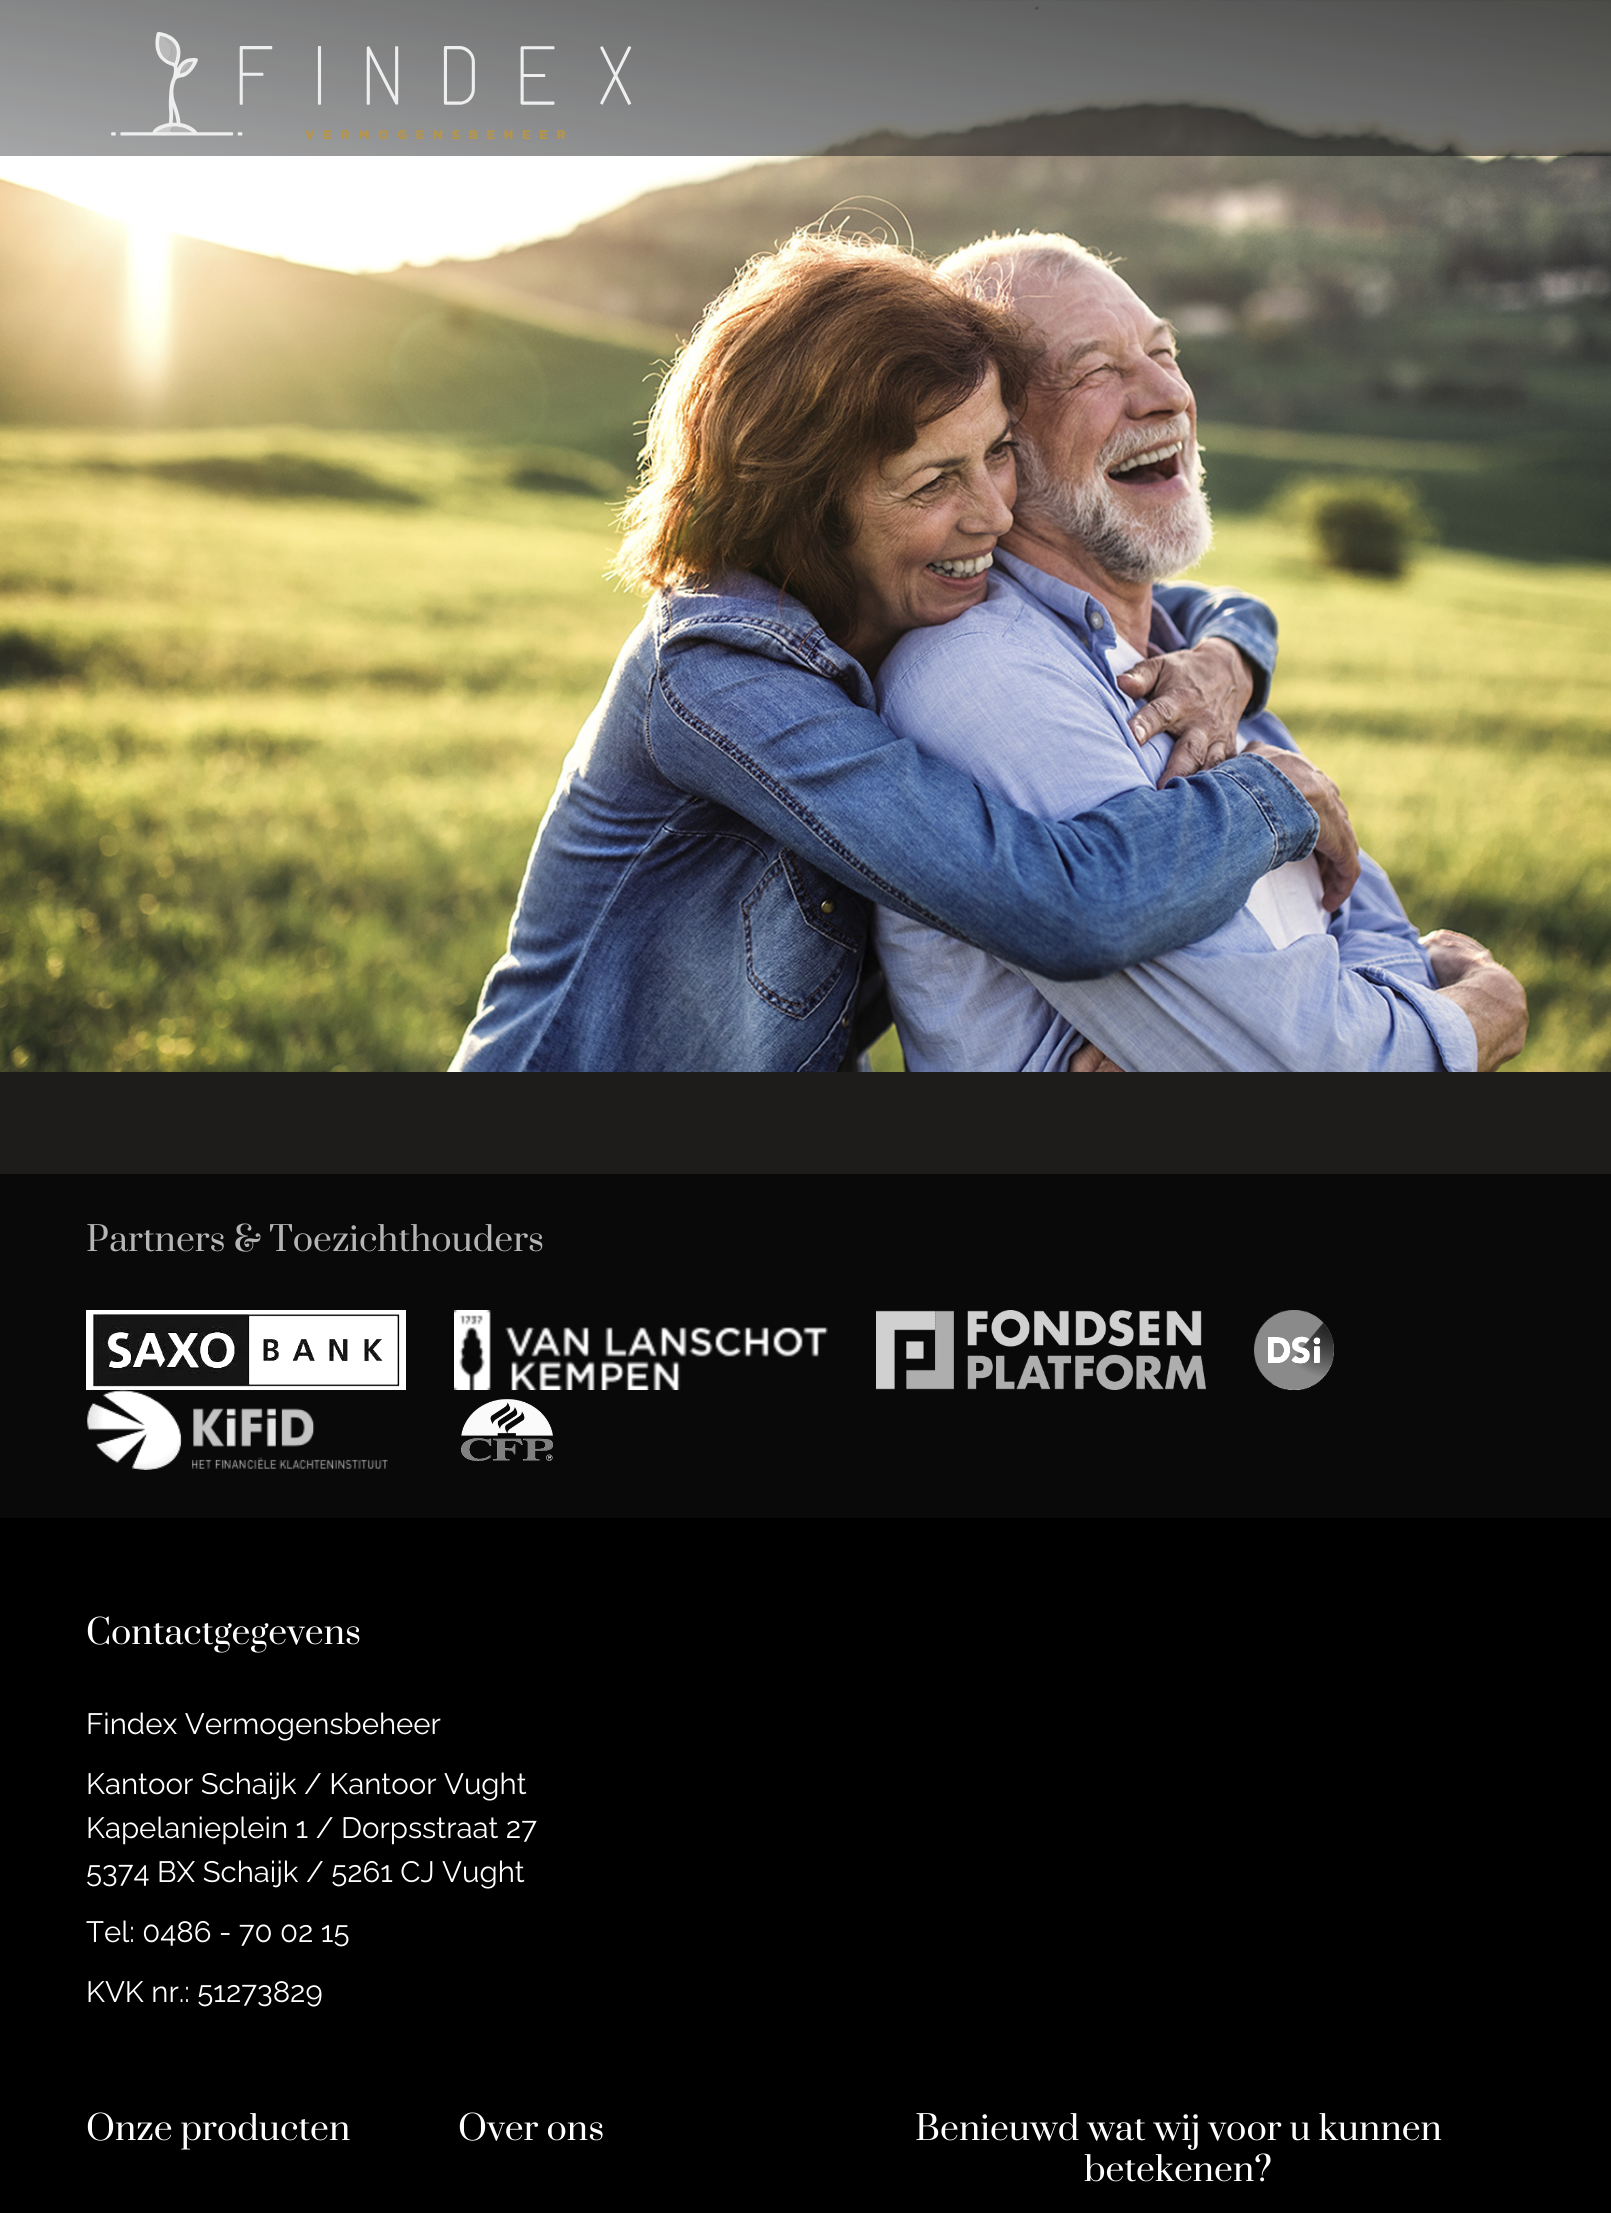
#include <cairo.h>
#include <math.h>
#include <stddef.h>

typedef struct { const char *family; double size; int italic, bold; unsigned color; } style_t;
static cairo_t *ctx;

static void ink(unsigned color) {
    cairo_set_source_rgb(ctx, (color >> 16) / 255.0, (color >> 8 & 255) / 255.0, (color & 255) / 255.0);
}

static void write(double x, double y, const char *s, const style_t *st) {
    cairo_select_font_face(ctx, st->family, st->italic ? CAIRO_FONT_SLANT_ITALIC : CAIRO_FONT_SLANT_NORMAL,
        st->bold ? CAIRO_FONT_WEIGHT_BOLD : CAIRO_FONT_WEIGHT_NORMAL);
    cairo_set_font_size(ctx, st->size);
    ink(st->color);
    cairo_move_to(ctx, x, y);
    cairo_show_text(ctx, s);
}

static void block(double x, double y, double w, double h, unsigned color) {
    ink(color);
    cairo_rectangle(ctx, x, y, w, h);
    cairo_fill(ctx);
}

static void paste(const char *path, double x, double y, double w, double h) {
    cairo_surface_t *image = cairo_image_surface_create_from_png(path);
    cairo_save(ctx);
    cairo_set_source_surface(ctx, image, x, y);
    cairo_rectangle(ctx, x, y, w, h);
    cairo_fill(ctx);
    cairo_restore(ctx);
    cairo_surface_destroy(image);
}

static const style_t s1 = {"Prata", 33.6, 0, 0, 0xb5b5b5};
static const style_t s2 = {"Prata", 33.6, 0, 0, 0xffffff};
static const style_t s3 = {"Raleway Thin", 29.4, 0, 0, 0xffffff};

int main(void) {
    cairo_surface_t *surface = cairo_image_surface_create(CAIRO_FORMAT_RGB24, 1611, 2213);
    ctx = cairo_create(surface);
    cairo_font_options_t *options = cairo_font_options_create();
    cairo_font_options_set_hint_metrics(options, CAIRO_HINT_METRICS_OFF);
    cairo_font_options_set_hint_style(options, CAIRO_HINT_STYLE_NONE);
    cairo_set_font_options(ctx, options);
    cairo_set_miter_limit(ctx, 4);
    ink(0x1e1c1a);
    cairo_paint(ctx);
    paste("pic1.png", 0, 0, 1611, 1072);
    paste("pic2.png", 111, 32, 521, 108);
    block(0, 1518, 1611, 695, 0x000000);
    block(0, 1174, 1611, 344, 0x090909);
    write(86, 1251, "Partners & Toezichthouders", &s1);
    paste("pic3.png", 86, 1310, 320, 80);
    paste("pic4.png", 454, 1310, 374, 80);
    paste("pic5.png", 876, 1310, 330, 80);
    paste("pic6.png", 1254, 1310, 80, 80);
    paste("pic7.png", 87, 1390, 301, 80);
    paste("pic8.png", 461, 1399, 92, 62);
    write(86, 1644, "Contactgegevens", &s2);
    write(86, 1734, "Findex Vermogensbeheer", &s3);
    write(86, 1794, "Kantoor Schaijk / Kantoor Vught", &s3);
    write(86, 1838, "Kapelanieplein 1 / Dorpsstraat 27", &s3);
    write(86, 1882, "5374 BX Schaijk / 5261 CJ Vught", &s3);
    write(86, 1942, "Tel: 0486 - 70 02 15", &s3);
    write(86, 2002, "KVK nr.: 51273829", &s3);
    write(86, 2140, "Onze producten", &s2);
    write(458, 2140, "Over ons", &s2);
    write(915, 2140, "Benieuwd wat wij voor u kunnen", &s2);
    write(1084, 2181, "betekenen?", &s2);
    cairo_surface_write_to_png(surface, "screenshot.png");
    cairo_font_options_destroy(options);
    cairo_destroy(ctx);
    cairo_surface_destroy(surface);
    return 0;
}
